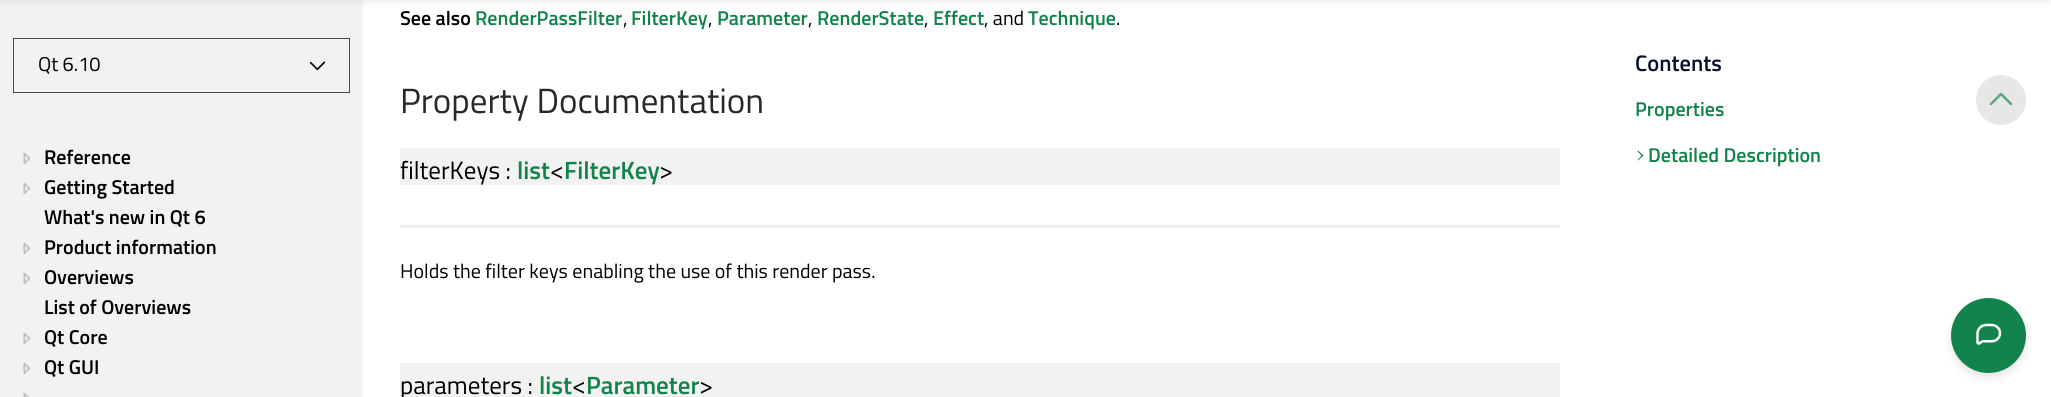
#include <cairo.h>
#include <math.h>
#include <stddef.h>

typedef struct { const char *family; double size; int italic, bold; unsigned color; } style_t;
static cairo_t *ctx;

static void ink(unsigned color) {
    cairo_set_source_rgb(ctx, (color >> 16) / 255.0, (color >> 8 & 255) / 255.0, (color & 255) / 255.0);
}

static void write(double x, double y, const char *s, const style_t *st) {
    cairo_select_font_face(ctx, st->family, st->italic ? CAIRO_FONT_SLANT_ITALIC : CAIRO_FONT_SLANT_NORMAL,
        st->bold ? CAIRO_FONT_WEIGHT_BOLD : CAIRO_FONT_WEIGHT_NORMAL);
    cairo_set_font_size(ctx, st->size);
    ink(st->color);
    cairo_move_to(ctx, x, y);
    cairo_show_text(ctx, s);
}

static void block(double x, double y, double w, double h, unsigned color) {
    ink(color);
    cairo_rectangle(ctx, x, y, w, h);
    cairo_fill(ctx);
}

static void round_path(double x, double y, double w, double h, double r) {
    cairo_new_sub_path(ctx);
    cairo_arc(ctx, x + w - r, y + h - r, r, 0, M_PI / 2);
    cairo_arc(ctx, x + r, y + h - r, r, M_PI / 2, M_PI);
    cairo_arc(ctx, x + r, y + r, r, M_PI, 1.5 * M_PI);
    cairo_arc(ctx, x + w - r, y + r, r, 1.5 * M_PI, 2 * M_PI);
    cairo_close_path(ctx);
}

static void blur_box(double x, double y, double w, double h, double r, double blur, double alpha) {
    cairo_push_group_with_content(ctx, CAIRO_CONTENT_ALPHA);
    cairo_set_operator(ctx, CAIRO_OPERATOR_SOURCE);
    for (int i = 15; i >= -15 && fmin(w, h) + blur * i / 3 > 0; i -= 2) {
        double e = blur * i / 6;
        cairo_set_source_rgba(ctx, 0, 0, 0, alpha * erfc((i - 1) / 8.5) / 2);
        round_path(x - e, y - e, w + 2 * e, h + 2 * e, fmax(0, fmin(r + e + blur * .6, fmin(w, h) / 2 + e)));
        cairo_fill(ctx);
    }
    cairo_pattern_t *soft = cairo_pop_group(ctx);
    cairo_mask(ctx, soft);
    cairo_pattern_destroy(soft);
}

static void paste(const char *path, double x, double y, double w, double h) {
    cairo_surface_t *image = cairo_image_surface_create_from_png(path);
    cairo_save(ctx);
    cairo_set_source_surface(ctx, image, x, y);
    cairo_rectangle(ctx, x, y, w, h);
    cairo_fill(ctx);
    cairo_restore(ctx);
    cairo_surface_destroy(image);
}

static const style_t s1 = {"Titillium Web", 20, 0, 0, 0x000000};
static const style_t s2 = {"Titillium Web SemiBold", 20, 0, 0, 0x000000};
static const style_t s3 = {"Titillium Web SemiBold", 20, 0, 0, 0x12834b};
static const style_t s4 = {"Titillium Web", 35, 0, 0, 0x26282a};
static const style_t s5 = {"Titillium Web", 25, 0, 0, 0x000000};
static const style_t s6 = {"Titillium Web SemiBold", 25, 0, 0, 0x12834b};
static const style_t s7 = {"Titillium Web SemiBold", 22.5, 0, 0, 0x09102b};

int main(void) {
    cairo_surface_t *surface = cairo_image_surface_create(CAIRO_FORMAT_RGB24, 2051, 397);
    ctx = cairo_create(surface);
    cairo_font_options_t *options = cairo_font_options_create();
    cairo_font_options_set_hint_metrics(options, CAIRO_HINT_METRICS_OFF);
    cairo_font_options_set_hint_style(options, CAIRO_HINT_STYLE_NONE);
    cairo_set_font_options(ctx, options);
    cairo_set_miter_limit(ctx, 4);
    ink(0xffffff);
    cairo_paint(ctx);
    block(0, 0, 363, 397, 0xf2f2f2);
    ink(0x09102b);
    blur_box(0, -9, 2051, 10, 0, 3, 0.1);
    paste("pic1.png", 309, 61, 17, 10);
    cairo_rectangle(ctx, 13.5, 38.5, 336, 54);
    ink(0x4a4a4a);
    cairo_set_line_width(ctx, 1);
    cairo_stroke(ctx);
    write(38, 71, "Qt 6.10", &s1);
    paste("pic2.png", 23, 152, 8, 13);
    write(44, 164, "Reference", &s2);
    paste("pic2.png", 23, 182, 8, 13);
    write(44, 194, "Getting Started", &s2);
    write(44, 224, "What's new in Qt 6", &s2);
    paste("pic2.png", 23, 242, 8, 13);
    write(44, 254, "Product information", &s2);
    paste("pic2.png", 23, 272, 8, 13);
    write(44, 284, "Overviews", &s2);
    write(44, 314, "List of Overviews", &s2);
    paste("pic2.png", 23, 332, 8, 13);
    write(44, 344, "Qt Core", &s2);
    paste("pic2.png", 23, 362, 8, 13);
    write(44, 374, "Qt GUI", &s2);
    paste("pic3.png", 23, 392, 7, 5);
    write(400, 25, "See also", &s2);
    write(475, 25, "RenderPassFilter", &s3);
    write(623, 25, ",", &s1);
    write(631, 25, "FilterKey", &s3);
    write(708, 25, ",", &s1);
    write(717, 25, "Parameter", &s3);
    write(808, 25, ",", &s1);
    write(817, 25, "RenderState", &s3);
    write(924, 25, ",", &s1);
    write(933, 25, "Effect", &s3);
    write(984, 25, ", and", &s1);
    write(1028, 25, "Technique", &s3);
    write(1116, 25, ".", &s1);
    write(400, 113, "Property Documentation", &s4);
    block(400, 225, 1160, 3, 0xeeeeee);
    block(400, 148, 1160, 37, 0xf2f2f2);
    write(400, 179, "filterKeys :", &s5);
    write(517, 179, "list", &s6);
    write(550, 179, "<", &s5);
    write(564, 179, "FilterKey", &s6);
    write(659, 179, ">", &s5);
    write(400, 278, "Holds the filter keys enabling the use of this render pass.", &s1);
    block(400, 363, 1160, 34, 0xf2f2f2);
    write(400, 394, "parameters :", &s5);
    write(539, 394, "list", &s6);
    write(572, 394, "<", &s5);
    write(586, 394, "Parameter", &s6);
    write(699, 394, ">", &s5);
    write(1635, 71, "Contents", &s7);
    write(1635, 116, "Properties", &s3);
    cairo_new_path(ctx);
    cairo_move_to(ctx, 1637.5, 151.5);
    cairo_line_to(ctx, 1638, 150.5);
    cairo_line_to(ctx, 1643.5, 155.5);
    cairo_line_to(ctx, 1642.5, 156.5);
    cairo_close_path(ctx);
    cairo_fill(ctx);
    cairo_new_path(ctx);
    cairo_move_to(ctx, 1637.5, 160);
    cairo_line_to(ctx, 1642.5, 154.5);
    cairo_line_to(ctx, 1643.5, 155.5);
    cairo_line_to(ctx, 1638, 160.5);
    cairo_close_path(ctx);
    cairo_fill(ctx);
    write(1648, 162, "Detailed Description", &s3);
    ink(0xe7e7e7);
    cairo_new_path(ctx);
    cairo_arc(ctx, 2001, 100, 25, 0, 2 * M_PI);
    cairo_fill(ctx);
    cairo_new_path(ctx);
    cairo_move_to(ctx, 1991, 104);
    cairo_line_to(ctx, 2001, 94);
    cairo_line_to(ctx, 2011, 104);
    ink(0x59a881);
    cairo_set_line_width(ctx, 2.5);
    cairo_set_line_cap(ctx, CAIRO_LINE_CAP_ROUND);
    cairo_set_line_join(ctx, CAIRO_LINE_JOIN_ROUND);
    cairo_stroke(ctx);
    ink(0x000000);
    blur_box(1951, 303, 75, 75, 37.5, 4, 0.1);
    ink(0x12834b);
    cairo_arc(ctx, 1988.5, 335.5, 37.5, 0, 2 * M_PI);
    cairo_fill(ctx);
    paste("pic4.png", 1976, 323, 26, 22);
    cairo_surface_write_to_png(surface, "screenshot.png");
    cairo_font_options_destroy(options);
    cairo_destroy(ctx);
    cairo_surface_destroy(surface);
    return 0;
}
